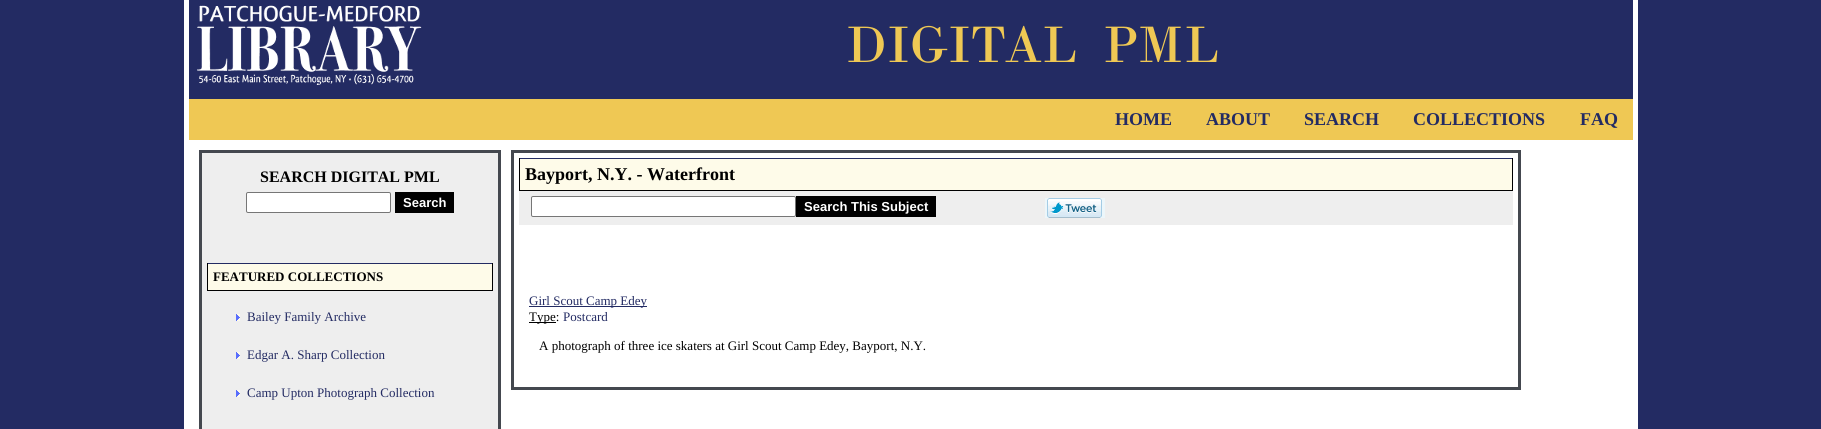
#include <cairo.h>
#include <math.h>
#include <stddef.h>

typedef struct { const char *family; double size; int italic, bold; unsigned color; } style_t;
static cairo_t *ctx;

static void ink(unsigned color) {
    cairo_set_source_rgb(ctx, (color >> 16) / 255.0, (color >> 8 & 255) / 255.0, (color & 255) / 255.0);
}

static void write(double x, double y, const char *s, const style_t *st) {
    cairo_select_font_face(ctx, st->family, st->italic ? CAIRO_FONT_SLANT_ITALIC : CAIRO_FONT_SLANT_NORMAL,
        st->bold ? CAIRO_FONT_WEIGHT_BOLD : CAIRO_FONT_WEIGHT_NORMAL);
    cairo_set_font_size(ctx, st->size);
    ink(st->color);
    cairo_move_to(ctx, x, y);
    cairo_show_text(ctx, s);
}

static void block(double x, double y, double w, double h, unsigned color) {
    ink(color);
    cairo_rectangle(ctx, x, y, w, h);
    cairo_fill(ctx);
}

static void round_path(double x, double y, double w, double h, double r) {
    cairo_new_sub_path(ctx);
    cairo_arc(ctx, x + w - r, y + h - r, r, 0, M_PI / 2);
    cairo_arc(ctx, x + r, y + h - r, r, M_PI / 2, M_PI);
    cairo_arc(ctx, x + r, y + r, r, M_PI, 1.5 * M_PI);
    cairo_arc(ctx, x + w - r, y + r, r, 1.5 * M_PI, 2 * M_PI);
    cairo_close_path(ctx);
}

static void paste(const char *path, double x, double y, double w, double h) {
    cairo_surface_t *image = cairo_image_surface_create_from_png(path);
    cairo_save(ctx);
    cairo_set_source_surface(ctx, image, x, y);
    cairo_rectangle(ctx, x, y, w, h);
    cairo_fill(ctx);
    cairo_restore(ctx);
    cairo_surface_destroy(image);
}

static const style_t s1 = {"Liberation Serif", 18, 0, 1, 0x232b63};
static const style_t s2 = {"Liberation Serif", 16, 0, 1, 0x000000};
static const style_t s3 = {"Liberation Sans", 13, 0, 1, 0xffffff};
static const style_t s4 = {"Liberation Serif", 13, 0, 1, 0x000000};
static const style_t s5 = {"Liberation Serif", 13, 0, 0, 0x232b63};
static const style_t s6 = {"Liberation Serif", 18, 0, 1, 0x000000};
static const style_t s7 = {"Liberation Serif", 13, 0, 0, 0x000000};

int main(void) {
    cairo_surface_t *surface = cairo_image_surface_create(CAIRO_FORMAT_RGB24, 1821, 429);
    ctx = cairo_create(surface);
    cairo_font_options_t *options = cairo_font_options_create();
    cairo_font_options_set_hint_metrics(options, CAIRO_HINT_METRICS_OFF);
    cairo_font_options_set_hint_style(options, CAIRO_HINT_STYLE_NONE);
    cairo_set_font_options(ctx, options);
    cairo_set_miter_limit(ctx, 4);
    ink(0x232b63);
    cairo_paint(ctx);
    block(184, 0, 1454, 429, 0xffffff);
    block(189, 0, 1444, 99, 0x232b63);
    paste("pic1.png", 197, 5, 225, 80);
    paste("pic2.png", 848, 25, 370, 38);
    block(189, 99, 1444, 41, 0xefc854);
    write(1115, 125, "HOME", &s1);
    write(1206, 125, "ABOUT", &s1);
    write(1304, 125, "SEARCH", &s1);
    write(1413, 125, "COLLECTIONS", &s1);
    write(1580, 125, "FAQ", &s1);
    ink(0xeeeeee);
    cairo_rectangle(ctx, 200.5, 151.5, 299, 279);
    cairo_fill_preserve(ctx);
    ink(0x44484f);
    cairo_set_line_width(ctx, 3);
    cairo_stroke(ctx);
    write(260, 182, "SEARCH DIGITAL PML", &s2);
    ink(0xffffff);
    round_path(246.5, 192.5, 144, 20, 1.5);
    cairo_fill_preserve(ctx);
    ink(0x767676);
    cairo_set_line_width(ctx, 1);
    cairo_stroke(ctx);
    block(395, 192, 59, 21, 0x000000);
    write(403, 207, "Search", &s3);
    block(208, 264, 284, 26, 0xfefbe9);
    block(207, 263, 286, 1, 0x232b63);
    block(492, 263, 1, 28, 0x000000);
    block(207, 290, 286, 1, 0x000000);
    block(207, 263, 1, 28, 0x000000);
    write(213, 281, "FEATURED COLLECTIONS", &s4);
    paste("pic3.png", 236, 314, 4, 7);
    write(247, 321, "Bailey Family Archive", &s5);
    paste("pic3.png", 236, 352, 4, 7);
    write(247, 359, "Edgar A. Sharp Collection", &s5);
    paste("pic3.png", 236, 390, 4, 7);
    write(247, 397, "Camp Upton Photograph Collection", &s5);
    cairo_rectangle(ctx, 512.5, 151.5, 1007, 237);
    ink(0x44484f);
    cairo_set_line_width(ctx, 3);
    cairo_stroke(ctx);
    block(520, 159, 992, 31, 0xfefbe9);
    block(519, 158, 994, 1, 0x232b63);
    block(1512, 158, 1, 33, 0x000000);
    block(519, 190, 994, 1, 0x000000);
    block(519, 158, 1, 33, 0x000000);
    write(525, 180, "Bayport, N.Y. - Waterfront", &s6);
    block(519, 191, 994, 34, 0xeeeeee);
    ink(0xffffff);
    round_path(531.5, 196.5, 264, 20, 1.5);
    cairo_fill_preserve(ctx);
    ink(0x767676);
    cairo_set_line_width(ctx, 1);
    cairo_stroke(ctx);
    block(796, 196, 140, 21, 0x000000);
    write(804, 211, "Search This Subject", &s3);
    paste("pic4.png", 1045, 198, 60, 20);
    block(529, 306, 118, 1, 0x232b63);
    write(529, 305, "Girl Scout Camp Edey", &s5);
    block(529, 322, 27, 1, 0x000000);
    write(529, 321, "Type:", &s7);
    write(563, 321, "Postcard", &s5);
    write(539, 350, "A photograph of three ice skaters at Girl Scout Camp Edey, Bayport, N.Y.", &s7);
    cairo_surface_write_to_png(surface, "screenshot.png");
    cairo_font_options_destroy(options);
    cairo_destroy(ctx);
    cairo_surface_destroy(surface);
    return 0;
}
